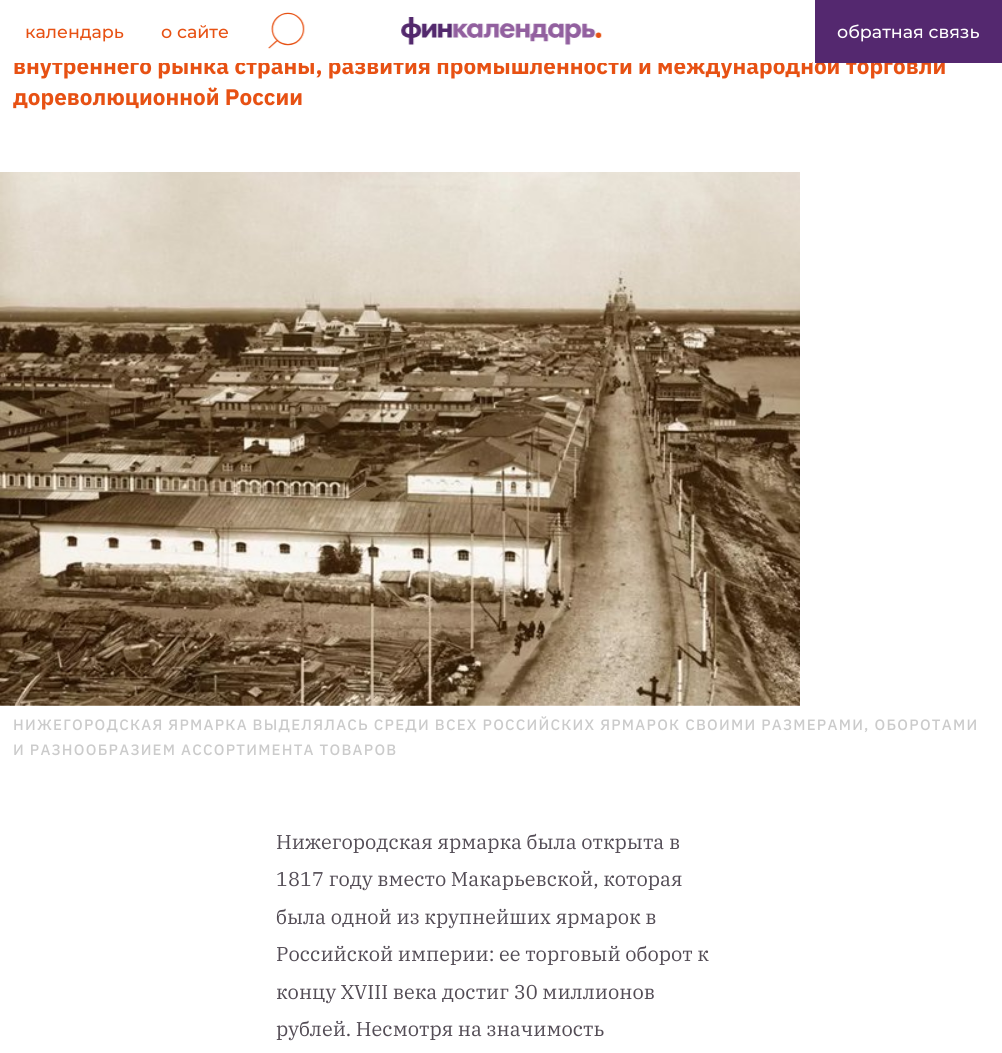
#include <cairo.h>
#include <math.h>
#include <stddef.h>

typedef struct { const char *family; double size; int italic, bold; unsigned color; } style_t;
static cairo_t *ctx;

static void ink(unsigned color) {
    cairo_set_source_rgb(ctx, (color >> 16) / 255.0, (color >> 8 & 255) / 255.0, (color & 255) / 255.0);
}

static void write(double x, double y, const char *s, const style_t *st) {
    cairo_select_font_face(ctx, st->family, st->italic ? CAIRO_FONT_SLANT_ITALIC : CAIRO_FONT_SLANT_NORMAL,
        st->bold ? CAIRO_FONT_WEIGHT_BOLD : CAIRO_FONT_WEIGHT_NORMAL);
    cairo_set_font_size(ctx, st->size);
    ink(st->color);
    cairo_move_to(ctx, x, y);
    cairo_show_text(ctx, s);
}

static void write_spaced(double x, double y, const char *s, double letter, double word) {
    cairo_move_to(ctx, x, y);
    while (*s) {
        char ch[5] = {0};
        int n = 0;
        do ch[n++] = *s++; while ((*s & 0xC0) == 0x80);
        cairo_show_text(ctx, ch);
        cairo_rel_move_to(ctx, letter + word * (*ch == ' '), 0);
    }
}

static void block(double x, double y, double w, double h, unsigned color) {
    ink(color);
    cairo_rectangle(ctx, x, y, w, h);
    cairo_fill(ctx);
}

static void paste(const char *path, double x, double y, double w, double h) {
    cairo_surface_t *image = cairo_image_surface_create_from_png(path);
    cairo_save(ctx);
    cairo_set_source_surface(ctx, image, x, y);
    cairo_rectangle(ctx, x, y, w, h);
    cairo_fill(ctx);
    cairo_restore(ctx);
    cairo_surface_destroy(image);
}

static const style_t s1 = {"IBM Plex Sans", 22.5, 0, 1, 0xe75113};
static const style_t s2 = {"Montserrat Medium", 17.5, 0, 0, 0xe75113};
static const style_t s3 = {"Montserrat Medium", 17.5, 0, 0, 0xffffff};
static const style_t s4 = {"IBM Plex Serif", 20, 0, 0, 0x534c55};

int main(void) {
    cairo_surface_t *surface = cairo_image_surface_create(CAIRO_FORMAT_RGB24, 1002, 1053);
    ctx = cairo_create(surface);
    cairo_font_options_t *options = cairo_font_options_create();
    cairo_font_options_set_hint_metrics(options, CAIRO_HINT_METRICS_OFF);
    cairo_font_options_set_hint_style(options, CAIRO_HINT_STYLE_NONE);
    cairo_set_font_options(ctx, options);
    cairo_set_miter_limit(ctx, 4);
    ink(0xffffff);
    cairo_paint(ctx);
    write(13, 74, "внутреннего рынка страны, развития промышленности и международной торговли", &s1);
    block(14, 61, 798, 2, 0xffffff);
    write(25, 38, "календарь", &s2);
    write(161, 38, "о сайте", &s2);
    paste("pic1.png", 268, 12, 37, 37);
    paste("pic2.png", 401, 17, 201, 28);
    block(815, 0, 187, 63, 0x54286f);
    write(837, 38, "обратная связь", &s3);
    write(13, 105, "дореволюционной России", &s1);
    paste("pic3.png", 0, 172, 800, 534);
    cairo_select_font_face(ctx, "IBM Plex Sans Medium", CAIRO_FONT_SLANT_NORMAL, CAIRO_FONT_WEIGHT_NORMAL);
    cairo_set_font_size(ctx, 15);
    ink(0xcbcbcb);
    write_spaced(13, 730, "НИЖЕГОРОДСКАЯ ЯРМАРКА ВЫДЕЛЯЛАСЬ СРЕДИ ВСЕХ РОССИЙСКИХ ЯРМАРОК СВОИМИ РАЗМЕРАМИ, ОБОРОТАМИ", 1.25, 0);
    write_spaced(13, 755, "И РАЗНООБРАЗИЕМ АССОРТИМЕНТА ТОВАРОВ", 1.25, 0);
    write(276, 849, "Нижегородская ярмарка была открыта в", &s4);
    write(276, 886, "1817 году вместо Макарьевской, которая", &s4);
    write(276, 924, "была одной из крупнейших ярмарок в", &s4);
    write(276, 961, "Российской империи: ее торговый оборот к", &s4);
    write(276, 999, "концу XVIII века достиг 30 миллионов", &s4);
    write(276, 1036, "рублей. Несмотря на значимость", &s4);
    cairo_surface_write_to_png(surface, "screenshot.png");
    cairo_font_options_destroy(options);
    cairo_destroy(ctx);
    cairo_surface_destroy(surface);
    return 0;
}
